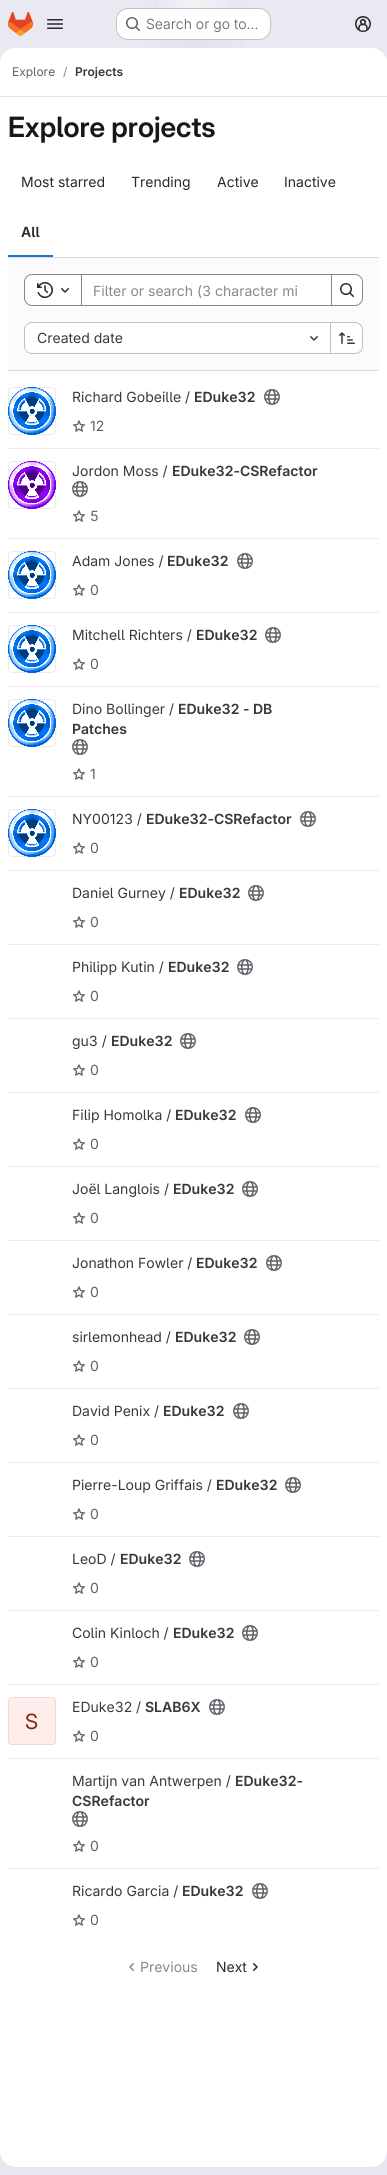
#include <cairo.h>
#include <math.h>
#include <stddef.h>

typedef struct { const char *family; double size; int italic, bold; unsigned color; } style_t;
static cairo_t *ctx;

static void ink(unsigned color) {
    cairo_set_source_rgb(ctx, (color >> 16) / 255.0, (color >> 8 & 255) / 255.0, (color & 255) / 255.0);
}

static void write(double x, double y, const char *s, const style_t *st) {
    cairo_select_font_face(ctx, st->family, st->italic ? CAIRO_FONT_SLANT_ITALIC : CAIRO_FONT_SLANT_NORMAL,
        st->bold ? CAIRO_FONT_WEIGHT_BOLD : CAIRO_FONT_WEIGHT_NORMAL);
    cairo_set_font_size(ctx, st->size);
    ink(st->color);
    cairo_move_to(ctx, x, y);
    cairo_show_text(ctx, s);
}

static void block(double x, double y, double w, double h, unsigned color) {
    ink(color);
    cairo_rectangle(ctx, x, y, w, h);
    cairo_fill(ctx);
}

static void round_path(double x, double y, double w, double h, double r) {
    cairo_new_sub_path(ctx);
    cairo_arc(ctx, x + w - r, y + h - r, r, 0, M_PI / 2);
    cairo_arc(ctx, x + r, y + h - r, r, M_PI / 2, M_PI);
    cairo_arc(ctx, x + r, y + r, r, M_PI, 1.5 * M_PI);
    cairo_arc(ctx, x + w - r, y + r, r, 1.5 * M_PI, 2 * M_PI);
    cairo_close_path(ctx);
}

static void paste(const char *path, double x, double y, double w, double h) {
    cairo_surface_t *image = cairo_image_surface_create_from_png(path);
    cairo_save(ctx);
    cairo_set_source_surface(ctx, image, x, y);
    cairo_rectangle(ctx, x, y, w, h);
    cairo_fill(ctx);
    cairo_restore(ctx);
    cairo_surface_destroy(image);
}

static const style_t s1 = {"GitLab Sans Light", 14, 0, 0, 0x626168};
static const style_t s2 = {"GitLab Sans", 12, 0, 0, 0x626168};
static const style_t s3 = {"GitLab Sans", 12, 0, 0, 0x89888d};
static const style_t s4 = {"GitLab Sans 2 SemiBold", 12, 0, 0, 0x3a383f};
static const style_t s5 = {"GitLab Sans SemiBold", 28, 0, 0, 0x18171d};
static const style_t s6 = {"GitLab Sans", 14, 0, 0, 0x28272d};
static const style_t s7 = {"GitLab Sans 2 SemiBold", 14, 0, 0, 0x28272d};
static const style_t s8 = {"GitLab Sans", 14, 0, 0, 0x89888d};
static const style_t s9 = {"GitLab Sans", 14, 0, 0, 0x3a383f};
static const style_t s10 = {"GitLab Sans 2 SemiBold", 14, 0, 0, 0x3a383f};
static const style_t s11 = {"GitLab Sans", 14, 0, 0, 0x626168};
static const style_t s12 = {"GitLab Sans 2", 21, 0, 0, 0x812713};

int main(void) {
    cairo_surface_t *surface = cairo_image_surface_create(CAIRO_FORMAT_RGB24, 387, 2175);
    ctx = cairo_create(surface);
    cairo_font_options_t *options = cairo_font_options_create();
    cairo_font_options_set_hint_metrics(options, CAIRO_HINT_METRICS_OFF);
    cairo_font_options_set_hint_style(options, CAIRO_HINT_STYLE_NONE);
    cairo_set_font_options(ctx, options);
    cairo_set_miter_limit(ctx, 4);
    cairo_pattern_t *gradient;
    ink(0xffffff);
    cairo_paint(ctx);
    gradient = cairo_pattern_create_linear(385, 2175, 1.7, -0.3);
    cairo_pattern_add_color_stop_rgba(gradient, 0, 0.91, 0.902, 0.941, 1);
    cairo_pattern_add_color_stop_rgba(gradient, 0.7, 0.918, 0.914, 0.949, 1);
    cairo_set_source(ctx, gradient);
    cairo_pattern_destroy(gradient);
    cairo_rectangle(ctx, 0, 0, 387, 2175);
    cairo_fill(ctx);
    gradient = cairo_pattern_create_radial(0, 0, 0, 0, 0, 1);
    cairo_pattern_set_matrix(gradient, &(cairo_matrix_t){1.0 / 194, 0, 0, 1.0 / 2175, -1.0 * 194 / 194, -1.0 * 0 / 2175});
    cairo_pattern_add_color_stop_rgba(gradient, 0, 0.894, 0.886, 0.929, 1);
    cairo_pattern_add_color_stop_rgba(gradient, 0.36, 0.894, 0.886, 0.929, 0);
    cairo_set_source(ctx, gradient);
    cairo_pattern_destroy(gradient);
    cairo_rectangle(ctx, 143, 0, 102, 48);
    cairo_fill(ctx);
    gradient = cairo_pattern_create_radial(0, 0, 0, 0, 0, 1);
    cairo_pattern_set_matrix(gradient, &(cairo_matrix_t){1.0 / 194, 0, 0, 1.0 / 2175, -1.0 * 194 / 194, -1.0 * 0 / 2175});
    cairo_pattern_add_color_stop_rgba(gradient, 0, 0.894, 0.886, 0.925, 1);
    cairo_pattern_add_color_stop_rgba(gradient, 0.26, 0.894, 0.886, 0.925, 0);
    cairo_set_source(ctx, gradient);
    cairo_pattern_destroy(gradient);
    cairo_rectangle(ctx, 181, 0, 26, 47);
    cairo_fill(ctx);
    gradient = cairo_pattern_create_radial(194, 0, 0, 194, 0, 2184);
    cairo_pattern_add_color_stop_rgba(gradient, 0, 1, 1, 1, 0.6);
    cairo_pattern_add_color_stop_rgba(gradient, 0.02, 1, 1, 1, 0);
    cairo_set_source(ctx, gradient);
    cairo_pattern_destroy(gradient);
    cairo_rectangle(ctx, 158, 0, 72, 37);
    cairo_fill(ctx);
    paste("pic1.png", 8, 12, 25, 24);
    paste("pic2.png", 47, 19, 16, 10);
    ink(0xffffff);
    round_path(116, 8, 155, 32, 12);
    cairo_fill(ctx);
    round_path(116.5, 8.5, 154, 31, 11.5);
    cairo_set_source_rgba(ctx, 0.02, 0.02, 0.024, 0.24);
    cairo_set_line_width(ctx, 1);
    cairo_stroke(ctx);
    paste("pic3.png", 126, 17, 14, 14);
    write(146, 29, "Search or go to…", &s1);
    paste("pic4.png", 355, 16, 16, 16);
    ink(0xffffff);
    round_path(0, 48, 387, 2119, 16);
    cairo_fill(ctx);
    cairo_new_path(ctx);
    cairo_move_to(ctx, 16, 48);
    cairo_line_to(ctx, 371, 48);
    cairo_curve_to(ctx, 380, 48, 387, 55, 387, 64);
    cairo_line_to(ctx, 387, 97);
    cairo_line_to(ctx, 0, 97);
    cairo_line_to(ctx, 0, 64);
    cairo_curve_to(ctx, 0, 55, 7, 48, 16, 48);
    cairo_close_path(ctx);
    cairo_fill(ctx);
    block(0, 96, 387, 1, 0xe1dfec);
    write(12, 76, "Explore", &s2);
    write(63, 76, "/", &s3);
    write(75, 76, "Projects", &s4);
    write(8, 137, "Explore projects", &s5);
    write(21, 187, "Most starred", &s6);
    write(131, 187, "Trending", &s6);
    write(217, 187, "Active", &s6);
    write(284, 187, "Inactive", &s6);
    write(21, 237, "All", &s7);
    block(8, 255, 45, 2, 0x1f75cb);
    block(8, 258, 371, 112, 0xfbfafd);
    block(8, 257, 371, 1, 0xdcdcde);
    block(8, 370, 371, 1, 0xdcdcde);
    ink(0xffffff);
    cairo_rectangle(ctx, 81.5, 274.5, 250, 31);
    cairo_fill_preserve(ctx);
    ink(0x89888d);
    cairo_stroke(ctx);
    ink(0xffffff);
    cairo_new_path(ctx);
    cairo_move_to(ctx, 32, 274.5);
    cairo_line_to(ctx, 81.5, 274.5);
    cairo_line_to(ctx, 81.5, 305.5);
    cairo_line_to(ctx, 32, 305.5);
    cairo_curve_to(ctx, 28, 305.5, 24.5, 302, 24.5, 298);
    cairo_line_to(ctx, 24.5, 282);
    cairo_curve_to(ctx, 24.5, 278, 28, 274.5, 32, 274.5);
    cairo_close_path(ctx);
    cairo_fill_preserve(ctx);
    ink(0x89888d);
    cairo_stroke(ctx);
    paste("pic5.png", 37, 282, 16, 16);
    paste("pic6.png", 61, 288, 8, 5);
    write(93, 296, "Filter or search (3 character mi", &s8);
    ink(0xffffff);
    cairo_new_path(ctx);
    cairo_move_to(ctx, 331.5, 274.5);
    cairo_line_to(ctx, 355, 274.5);
    cairo_curve_to(ctx, 359, 274.5, 362.5, 278, 362.5, 282);
    cairo_line_to(ctx, 362.5, 298);
    cairo_curve_to(ctx, 362.5, 302, 359, 305.5, 355, 305.5);
    cairo_line_to(ctx, 331.5, 305.5);
    cairo_close_path(ctx);
    cairo_fill_preserve(ctx);
    ink(0x89888d);
    cairo_stroke(ctx);
    paste("pic7.png", 340, 283, 14, 14);
    ink(0xffffff);
    cairo_new_path(ctx);
    cairo_move_to(ctx, 32, 323);
    cairo_line_to(ctx, 330, 323);
    cairo_line_to(ctx, 330, 353);
    cairo_line_to(ctx, 32, 353);
    cairo_curve_to(ctx, 28, 353, 25, 350, 25, 346);
    cairo_line_to(ctx, 25, 330);
    cairo_curve_to(ctx, 25, 326, 28, 323, 32, 323);
    cairo_close_path(ctx);
    cairo_fill(ctx);
    ink(0xbfbfc3);
    cairo_set_fill_rule(ctx, CAIRO_FILL_RULE_EVEN_ODD);
    cairo_new_path(ctx);
    cairo_move_to(ctx, 32, 322);
    cairo_line_to(ctx, 330, 322);
    cairo_line_to(ctx, 330, 354);
    cairo_line_to(ctx, 32, 354);
    cairo_curve_to(ctx, 28, 354, 24, 350, 24, 346);
    cairo_line_to(ctx, 24, 330);
    cairo_curve_to(ctx, 24, 326, 28, 322, 32, 322);
    cairo_close_path(ctx);
    cairo_move_to(ctx, 32, 323);
    cairo_line_to(ctx, 330, 323);
    cairo_line_to(ctx, 330, 353);
    cairo_line_to(ctx, 32, 353);
    cairo_curve_to(ctx, 28, 353, 25, 350, 25, 346);
    cairo_line_to(ctx, 25, 330);
    cairo_curve_to(ctx, 25, 326, 28, 323, 32, 323);
    cairo_close_path(ctx);
    cairo_fill(ctx);
    write(37, 343, "Created date", &s9);
    paste("pic8.png", 310, 336, 8, 5);
    ink(0xffffff);
    cairo_new_path(ctx);
    cairo_move_to(ctx, 331, 323);
    cairo_line_to(ctx, 355, 323);
    cairo_curve_to(ctx, 359, 323, 362, 326, 362, 330);
    cairo_line_to(ctx, 362, 346);
    cairo_curve_to(ctx, 362, 350, 359, 353, 355, 353);
    cairo_line_to(ctx, 331, 353);
    cairo_close_path(ctx);
    cairo_fill(ctx);
    ink(0xbfbfc3);
    cairo_new_path(ctx);
    cairo_move_to(ctx, 331, 322);
    cairo_line_to(ctx, 355, 322);
    cairo_curve_to(ctx, 359.5, 322, 363, 325.5, 363, 330);
    cairo_line_to(ctx, 363, 346);
    cairo_curve_to(ctx, 363, 350.5, 359.5, 354, 355, 354);
    cairo_line_to(ctx, 331, 354);
    cairo_close_path(ctx);
    cairo_move_to(ctx, 331, 323);
    cairo_line_to(ctx, 355, 323);
    cairo_curve_to(ctx, 359, 323, 362, 326, 362, 330);
    cairo_line_to(ctx, 362, 346);
    cairo_curve_to(ctx, 362, 350, 359, 353, 355, 353);
    cairo_line_to(ctx, 331, 353);
    cairo_close_path(ctx);
    cairo_fill(ctx);
    block(330, 322, 1, 32, 0xbfbfc3);
    paste("pic9.png", 339, 332, 16, 12);
    block(8, 448, 371, 1, 0xececef);
    paste("pic10.png", 8, 387, 48, 48);
    round_path(8.5, 387.5, 47, 47, 3.5);
    cairo_set_source_rgba(ctx, 0.02, 0.02, 0.024, 0.08);
    cairo_stroke(ctx);
    write(72, 402, "Richard Gobeille /", &s9);
    write(194, 402, "EDuke32", &s10);
    paste("pic11.png", 264, 389, 16, 16);
    paste("pic12.png", 72, 420, 14, 12);
    write(90, 431, "12", &s11);
    block(8, 538, 371, 1, 0xececef);
    paste("pic13.png", 8, 461, 48, 48);
    round_path(8.5, 461.5, 47, 47, 3.5);
    cairo_set_source_rgba(ctx, 0.02, 0.02, 0.024, 0.08);
    cairo_stroke(ctx);
    write(72, 476, "Jordon Moss /", &s9);
    write(172, 476, "EDuke32-CSRefactor", &s10);
    paste("pic11.png", 72, 481, 16, 16);
    paste("pic12.png", 72, 510, 14, 12);
    write(90, 521, "5", &s11);
    block(8, 612, 371, 1, 0xececef);
    paste("pic10.png", 8, 551, 48, 48);
    round_path(8.5, 551.5, 47, 47, 3.5);
    cairo_set_source_rgba(ctx, 0.02, 0.02, 0.024, 0.08);
    cairo_stroke(ctx);
    write(72, 566, "Adam Jones /", &s9);
    write(167, 566, "EDuke32", &s10);
    paste("pic11.png", 237, 553, 16, 16);
    paste("pic12.png", 72, 584, 14, 12);
    write(90, 595, "0", &s11);
    block(8, 686, 371, 1, 0xececef);
    paste("pic10.png", 8, 625, 48, 48);
    round_path(8.5, 625.5, 47, 47, 3.5);
    cairo_set_source_rgba(ctx, 0.02, 0.02, 0.024, 0.08);
    cairo_stroke(ctx);
    write(72, 640, "Mitchell Richters /", &s9);
    write(196, 640, "EDuke32", &s10);
    paste("pic11.png", 265, 627, 16, 16);
    paste("pic12.png", 72, 658, 14, 12);
    write(90, 669, "0", &s11);
    block(8, 796, 371, 1, 0xececef);
    paste("pic10.png", 8, 699, 48, 48);
    round_path(8.5, 699.5, 47, 47, 3.5);
    cairo_set_source_rgba(ctx, 0.02, 0.02, 0.024, 0.08);
    cairo_stroke(ctx);
    write(72, 714, "Dino Bollinger /", &s9);
    write(178, 714, "EDuke32 - DB", &s10);
    write(72, 734, "Patches", &s10);
    paste("pic11.png", 72, 739, 16, 16);
    paste("pic12.png", 72, 768, 14, 12);
    write(90, 779, "1", &s11);
    block(8, 870, 371, 1, 0xececef);
    paste("pic10.png", 8, 809, 48, 48);
    round_path(8.5, 809.5, 47, 47, 3.5);
    cairo_set_source_rgba(ctx, 0.02, 0.02, 0.024, 0.08);
    cairo_stroke(ctx);
    write(72, 824, "NY00123 /", &s9);
    write(146, 824, "EDuke32-CSRefactor", &s10);
    paste("pic11.png", 300, 811, 16, 16);
    paste("pic12.png", 72, 842, 14, 12);
    write(90, 853, "0", &s11);
    block(8, 944, 371, 1, 0xececef);
    write(72, 898, "Daniel Gurney /", &s9);
    write(179, 898, "EDuke32", &s10);
    paste("pic14.png", 248, 885, 16, 16);
    paste("pic12.png", 72, 916, 14, 12);
    write(90, 927, "0", &s11);
    block(8, 1018, 371, 1, 0xececef);
    write(72, 972, "Philipp Kutin /", &s9);
    write(168, 972, "EDuke32", &s10);
    paste("pic11.png", 237, 959, 16, 16);
    paste("pic12.png", 72, 990, 14, 12);
    write(90, 1001, "0", &s11);
    block(8, 1092, 371, 1, 0xececef);
    write(72, 1046, "gu3 /", &s9);
    write(111, 1046, "EDuke32", &s10);
    paste("pic11.png", 180, 1033, 16, 16);
    paste("pic12.png", 72, 1064, 14, 12);
    write(90, 1075, "0", &s11);
    block(8, 1166, 371, 1, 0xececef);
    write(72, 1120, "Filip Homolka /", &s9);
    write(175, 1120, "EDuke32", &s10);
    paste("pic15.png", 245, 1107, 16, 16);
    paste("pic12.png", 72, 1138, 14, 12);
    write(90, 1149, "0", &s11);
    block(8, 1240, 371, 1, 0xececef);
    write(72, 1194, "Joël Langlois /", &s9);
    write(173, 1194, "EDuke32", &s10);
    paste("pic16.png", 242, 1181, 16, 16);
    paste("pic12.png", 72, 1212, 14, 12);
    write(90, 1223, "0", &s11);
    block(8, 1314, 371, 1, 0xececef);
    write(72, 1268, "Jonathon Fowler /", &s9);
    write(196, 1268, "EDuke32", &s10);
    paste("pic11.png", 266, 1255, 16, 16);
    paste("pic12.png", 72, 1286, 14, 12);
    write(90, 1297, "0", &s11);
    block(8, 1388, 371, 1, 0xececef);
    write(72, 1342, "sirlemonhead /", &s9);
    write(175, 1342, "EDuke32", &s10);
    paste("pic17.png", 244, 1329, 16, 16);
    paste("pic12.png", 72, 1360, 14, 12);
    write(90, 1371, "0", &s11);
    block(8, 1462, 371, 1, 0xececef);
    write(72, 1416, "David Penix /", &s9);
    write(163, 1416, "EDuke32", &s10);
    paste("pic11.png", 233, 1403, 16, 16);
    paste("pic12.png", 72, 1434, 14, 12);
    write(90, 1445, "0", &s11);
    block(8, 1536, 371, 1, 0xececef);
    write(72, 1490, "Pierre-Loup Griffais /", &s9);
    write(216, 1490, "EDuke32", &s10);
    paste("pic11.png", 285, 1477, 16, 16);
    paste("pic12.png", 72, 1508, 14, 12);
    write(90, 1519, "0", &s11);
    block(8, 1610, 371, 1, 0xececef);
    write(72, 1564, "LeoD /", &s9);
    write(120, 1564, "EDuke32", &s10);
    paste("pic11.png", 189, 1551, 16, 16);
    paste("pic12.png", 72, 1582, 14, 12);
    write(90, 1593, "0", &s11);
    block(8, 1684, 371, 1, 0xececef);
    write(72, 1638, "Colin Kinloch /", &s9);
    write(173, 1638, "EDuke32", &s10);
    paste("pic16.png", 242, 1625, 16, 16);
    paste("pic12.png", 72, 1656, 14, 12);
    write(90, 1667, "0", &s11);
    block(8, 1758, 371, 1, 0xececef);
    ink(0xfeedeb);
    round_path(8, 1697, 48, 48, 4);
    cairo_fill(ctx);
    round_path(8.5, 1697.5, 47, 47, 3.5);
    cairo_set_source_rgba(ctx, 0.02, 0.02, 0.024, 0.08);
    cairo_stroke(ctx);
    write(25, 1729, "S", &s12);
    write(72, 1712, "EDuke32 /", &s9);
    write(145, 1712, "SLAB6X", &s10);
    paste("pic11.png", 209, 1699, 16, 16);
    paste("pic12.png", 72, 1730, 14, 12);
    write(90, 1741, "0", &s11);
    block(8, 1868, 371, 1, 0xececef);
    write(72, 1786, "Martijn van Antwerpen /", &s9);
    write(235, 1786, "EDuke32-", &s10);
    write(72, 1806, "CSRefactor", &s10);
    paste("pic11.png", 72, 1811, 16, 16);
    paste("pic12.png", 72, 1840, 14, 12);
    write(90, 1851, "0", &s11);
    write(72, 1896, "Ricardo Garcia /", &s9);
    write(182, 1896, "EDuke32", &s10);
    paste("pic18.png", 252, 1883, 16, 16);
    paste("pic12.png", 72, 1914, 14, 12);
    write(90, 1925, "0", &s11);
    paste("pic19.png", 129, 1963, 5, 8);
    write(140, 1972, "Previous", &s8);
    write(216, 1972, "Next", &s6);
    paste("pic20.png", 253, 1963, 5, 8);
    cairo_surface_write_to_png(surface, "screenshot.png");
    cairo_font_options_destroy(options);
    cairo_destroy(ctx);
    cairo_surface_destroy(surface);
    return 0;
}
